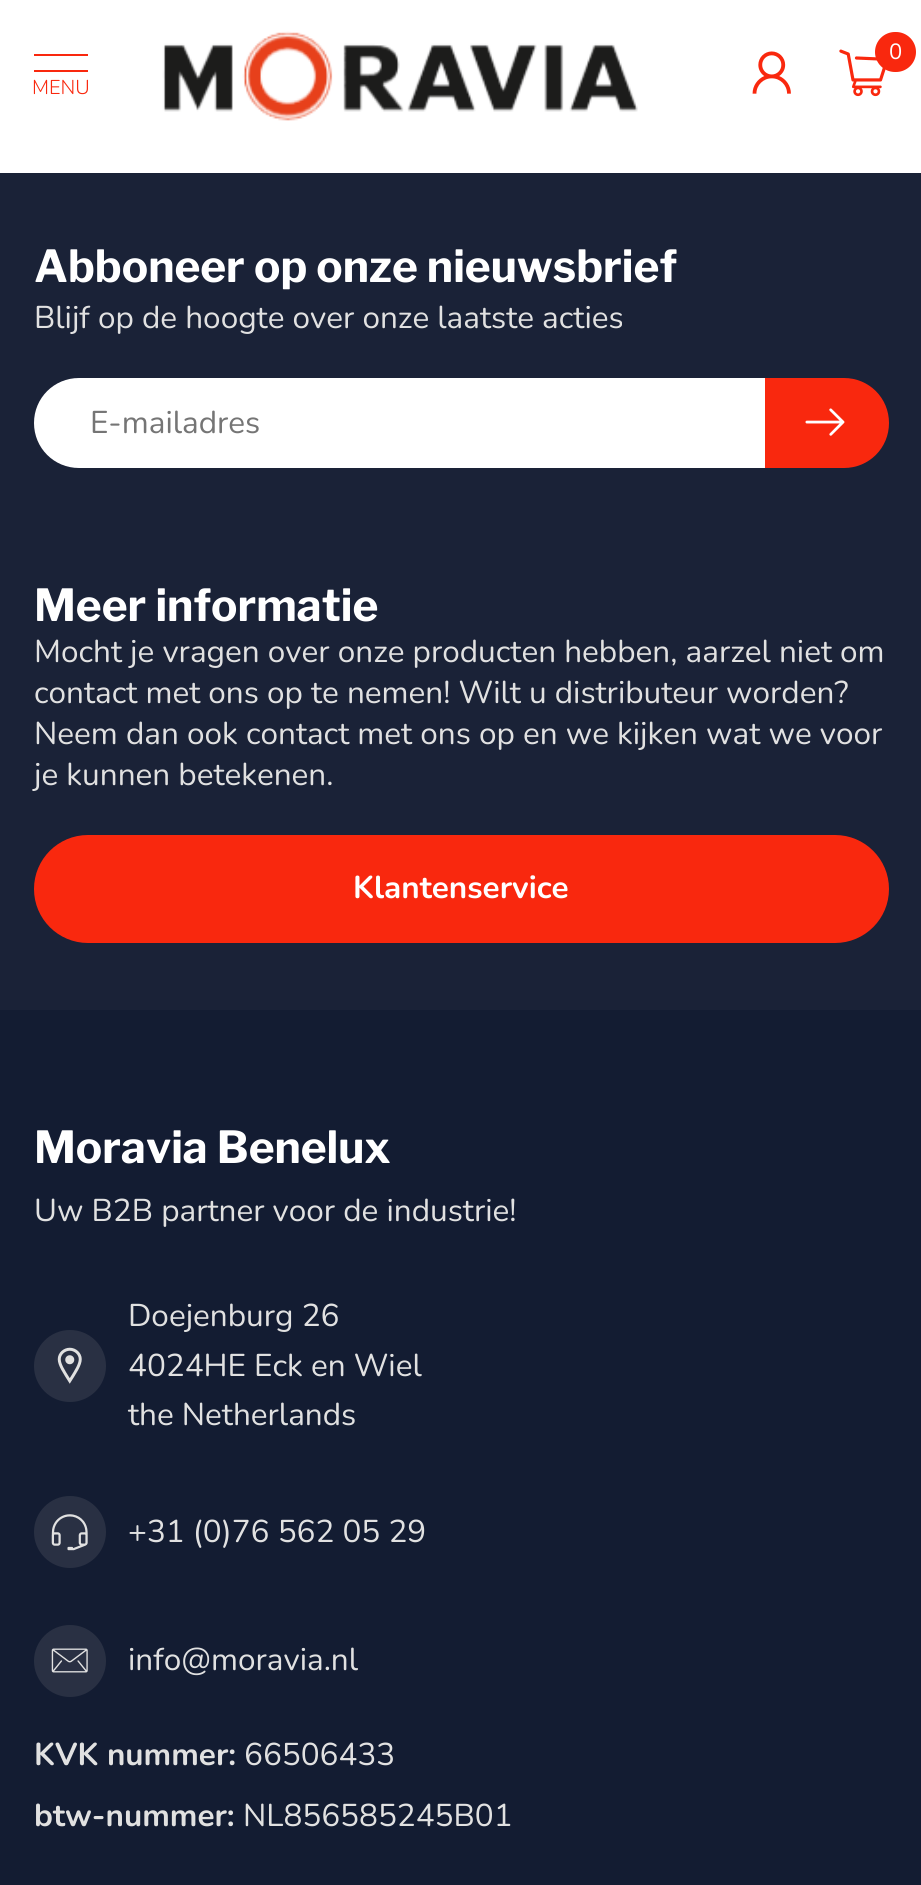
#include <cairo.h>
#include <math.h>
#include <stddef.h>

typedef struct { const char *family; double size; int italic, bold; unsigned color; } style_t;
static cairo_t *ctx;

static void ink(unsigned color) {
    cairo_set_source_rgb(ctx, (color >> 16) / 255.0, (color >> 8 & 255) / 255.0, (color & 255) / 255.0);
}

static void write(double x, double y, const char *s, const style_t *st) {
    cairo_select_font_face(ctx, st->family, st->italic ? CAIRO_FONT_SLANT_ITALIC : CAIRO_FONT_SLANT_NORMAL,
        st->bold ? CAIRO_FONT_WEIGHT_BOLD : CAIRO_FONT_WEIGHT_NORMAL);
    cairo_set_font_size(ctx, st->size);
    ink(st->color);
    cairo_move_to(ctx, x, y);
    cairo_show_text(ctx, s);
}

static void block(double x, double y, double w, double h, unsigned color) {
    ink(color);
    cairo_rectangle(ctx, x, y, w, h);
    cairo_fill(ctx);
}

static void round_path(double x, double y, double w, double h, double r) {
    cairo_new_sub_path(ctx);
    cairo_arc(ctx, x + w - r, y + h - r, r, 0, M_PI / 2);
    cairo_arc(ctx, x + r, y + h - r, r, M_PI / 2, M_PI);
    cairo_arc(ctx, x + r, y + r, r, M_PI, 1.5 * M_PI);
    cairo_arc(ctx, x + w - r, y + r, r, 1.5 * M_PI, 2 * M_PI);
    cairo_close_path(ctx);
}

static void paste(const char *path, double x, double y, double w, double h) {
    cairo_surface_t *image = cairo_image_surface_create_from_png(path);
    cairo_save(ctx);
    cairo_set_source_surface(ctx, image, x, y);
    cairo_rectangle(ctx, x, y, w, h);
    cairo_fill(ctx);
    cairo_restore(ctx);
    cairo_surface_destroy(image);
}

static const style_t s1 = {"Nunito", 22, 0, 0, 0xffffff};
static const style_t s2 = {"Nunito Light", 20, 0, 0, 0xf9280e};
static const style_t s3 = {"Libre Franklin", 44.1, 0, 1, 0xffffff};
static const style_t s4 = {"Nunito", 31.5, 0, 0, 0xe1e1e1};
static const style_t s5 = {"Nunito", 31.5, 0, 0, 0x757575};
static const style_t s6 = {"Nunito", 31.5, 0, 1, 0xffffff};
static const style_t s7 = {"Nunito", 31.5, 0, 1, 0xe1e1e1};

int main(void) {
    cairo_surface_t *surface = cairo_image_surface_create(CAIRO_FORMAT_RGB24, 921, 1885);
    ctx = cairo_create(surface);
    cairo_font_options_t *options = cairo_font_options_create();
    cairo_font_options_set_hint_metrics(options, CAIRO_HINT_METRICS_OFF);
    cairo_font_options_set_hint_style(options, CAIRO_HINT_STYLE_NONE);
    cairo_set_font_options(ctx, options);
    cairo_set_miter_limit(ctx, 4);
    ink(0xffffff);
    cairo_paint(ctx);
    paste("pic1.png", 752, 51, 39, 43);
    paste("pic2.png", 839, 49, 47, 48);
    ink(0xf9280e);
    round_path(875, 32, 41, 40, 20);
    cairo_fill(ctx);
    write(889, 59, "0", &s1);
    block(34, 54, 54, 2, 0xf9280e);
    block(34, 70, 54, 2, 0xf9280e);
    write(32, 94, "MENU", &s2);
    paste("pic3.png", 162, 31, 476, 90);
    block(0, 1010, 921, 875, 0x131c32);
    block(0, 173, 921, 837, 0x1a2237);
    write(34, 282, "Abboneer op onze nieuwsbrief", &s3);
    write(34, 328, "Blijf op de hoogte over onze laatste acties", &s4);
    ink(0xffffff);
    cairo_new_path(ctx);
    cairo_move_to(ctx, 79, 378);
    cairo_line_to(ctx, 765, 378);
    cairo_line_to(ctx, 765, 468);
    cairo_line_to(ctx, 79, 468);
    cairo_curve_to(ctx, 54, 468, 34, 448, 34, 423);
    cairo_curve_to(ctx, 34, 398, 54, 378, 79, 378);
    cairo_close_path(ctx);
    cairo_fill(ctx);
    write(90, 433, "E-mailadres", &s5);
    ink(0xf9280e);
    cairo_new_path(ctx);
    cairo_move_to(ctx, 765, 378);
    cairo_line_to(ctx, 844, 378);
    cairo_curve_to(ctx, 869, 378, 889, 398, 889, 423);
    cairo_curve_to(ctx, 889, 448, 869, 468, 844, 468);
    cairo_line_to(ctx, 765, 468);
    cairo_close_path(ctx);
    cairo_fill(ctx);
    paste("pic4.png", 805, 408, 40, 28);
    write(34, 621, "Meer informatie", &s3);
    write(34, 662, "Mocht je vragen over onze producten hebben, aarzel niet om", &s4);
    write(34, 703, "contact met ons op te nemen! Wilt u distributeur worden?", &s4);
    write(34, 744, "Neem dan ook contact met ons op en we kijken wat we voor", &s4);
    write(34, 785, "je kunnen betekenen.", &s4);
    ink(0xf9280e);
    round_path(34, 835, 855, 108, 54);
    cairo_fill(ctx);
    write(353, 898, "Klantenservice", &s6);
    write(34, 1163, "Moravia Benelux", &s3);
    write(34, 1221, "Uw B2B partner voor de industrie!", &s4);
    ink(0x293043);
    cairo_new_path(ctx);
    cairo_arc(ctx, 70, 1366, 36, 0, 2 * M_PI);
    cairo_fill(ctx);
    paste("pic5.png", 57, 1347, 25, 37);
    write(128, 1326, "Doejenburg 26", &s4);
    write(128, 1376, "4024HE Eck en Wiel", &s4);
    write(128, 1425, "the Netherlands", &s4);
    ink(0x293043);
    cairo_new_path(ctx);
    cairo_arc(ctx, 70, 1532, 36, 0, 2 * M_PI);
    cairo_fill(ctx);
    paste("pic6.png", 51, 1514, 37, 37);
    write(128, 1542, "+31 (0)76 562 05 29", &s4);
    ink(0x293043);
    cairo_new_path(ctx);
    cairo_arc(ctx, 70, 1661, 36, 0, 2 * M_PI);
    cairo_fill(ctx);
    paste("pic7.png", 51, 1648, 37, 25);
    write(128, 1670, "info@moravia.nl", &s4);
    write(34, 1765, "KVK nummer:", &s7);
    write(244, 1765, "66506433", &s4);
    write(34, 1826, "btw-nummer:", &s7);
    write(243, 1826, "NL856585245B01", &s4);
    cairo_surface_write_to_png(surface, "screenshot.png");
    cairo_font_options_destroy(options);
    cairo_destroy(ctx);
    cairo_surface_destroy(surface);
    return 0;
}
